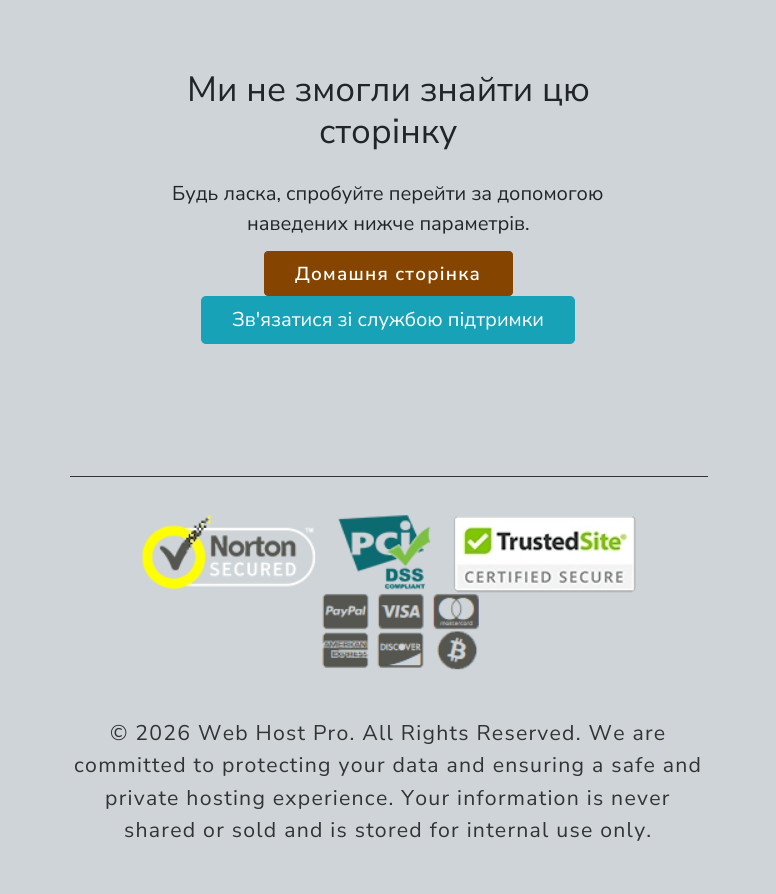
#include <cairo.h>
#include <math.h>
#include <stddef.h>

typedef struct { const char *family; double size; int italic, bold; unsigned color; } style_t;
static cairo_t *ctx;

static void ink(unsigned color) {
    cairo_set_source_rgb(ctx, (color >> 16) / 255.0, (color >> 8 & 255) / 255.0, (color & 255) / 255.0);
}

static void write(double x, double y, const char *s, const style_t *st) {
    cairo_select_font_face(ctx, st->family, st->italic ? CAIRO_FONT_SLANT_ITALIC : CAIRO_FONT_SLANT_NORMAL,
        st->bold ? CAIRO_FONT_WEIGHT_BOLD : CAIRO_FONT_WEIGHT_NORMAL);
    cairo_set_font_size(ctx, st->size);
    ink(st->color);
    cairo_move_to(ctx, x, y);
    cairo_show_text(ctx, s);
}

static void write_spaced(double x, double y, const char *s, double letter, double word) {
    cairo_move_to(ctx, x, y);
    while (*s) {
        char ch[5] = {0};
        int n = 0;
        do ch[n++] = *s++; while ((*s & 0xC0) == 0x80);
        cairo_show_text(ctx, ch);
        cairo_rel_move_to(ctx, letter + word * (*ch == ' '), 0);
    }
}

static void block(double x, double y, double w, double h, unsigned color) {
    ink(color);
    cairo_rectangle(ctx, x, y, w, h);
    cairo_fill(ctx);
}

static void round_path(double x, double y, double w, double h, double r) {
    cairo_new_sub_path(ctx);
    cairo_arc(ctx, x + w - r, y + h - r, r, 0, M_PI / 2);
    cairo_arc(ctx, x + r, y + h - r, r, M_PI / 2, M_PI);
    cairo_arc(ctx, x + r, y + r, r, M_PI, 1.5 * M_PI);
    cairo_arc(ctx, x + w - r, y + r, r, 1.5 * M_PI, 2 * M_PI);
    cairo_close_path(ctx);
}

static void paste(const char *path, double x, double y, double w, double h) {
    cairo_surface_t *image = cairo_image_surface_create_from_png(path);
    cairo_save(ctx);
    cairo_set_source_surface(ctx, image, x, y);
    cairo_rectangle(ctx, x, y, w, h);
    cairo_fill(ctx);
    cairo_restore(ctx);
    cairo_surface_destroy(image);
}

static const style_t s1 = {"Nunito Sans", 35, 0, 0, 0x212529};
static const style_t s2 = {"Nunito Sans", 20, 0, 0, 0x212529};
static const style_t s3 = {"Nunito Sans", 20, 0, 0, 0xffffff};

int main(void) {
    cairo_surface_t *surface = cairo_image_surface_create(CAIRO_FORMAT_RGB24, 776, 894);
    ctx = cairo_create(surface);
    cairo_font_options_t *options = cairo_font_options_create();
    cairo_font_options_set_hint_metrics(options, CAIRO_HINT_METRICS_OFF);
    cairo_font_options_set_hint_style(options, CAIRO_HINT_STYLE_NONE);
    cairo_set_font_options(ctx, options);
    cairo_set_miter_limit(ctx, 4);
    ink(0xced4d7);
    cairo_paint(ctx);
    write(187, 101, "Ми не змогли знайти цю", &s1);
    write(319, 143, "сторінку", &s1);
    write(172, 200, "Будь ласка, спробуйте перейти за допомогою", &s2);
    write(247, 230, "наведених нижче параметрів.", &s2);
    ink(0x854500);
    round_path(264.5, 251.5, 248, 44, 3.5);
    cairo_fill_preserve(ctx);
    cairo_set_line_width(ctx, 1);
    cairo_stroke(ctx);
    cairo_select_font_face(ctx, "Nunito Sans SemiBold", CAIRO_FONT_SLANT_NORMAL, CAIRO_FONT_WEIGHT_NORMAL);
    cairo_set_font_size(ctx, 18.75);
    ink(0xffffff);
    write_spaced(295, 280, "Домашня сторінка", 1.25, 0);
    ink(0x17a2b8);
    round_path(201.5, 296.5, 373, 47, 4.5);
    cairo_fill_preserve(ctx);
    cairo_stroke(ctx);
    write(232, 326, "Зв'язатися зі службою підтримки", &s3);
    block(70, 476, 638, 1, 0x333333);
    paste("pic1.png", 142, 515, 174, 75);
    paste("pic2.png", 338, 515, 93, 75);
    paste("pic3.png", 453, 516, 183, 77);
    paste("pic4.png", 322, 593, 157, 77);
    cairo_set_font_size(ctx, 21.25);
    write_spaced(110, 740, "© 2026 Web Host Pro. All Rights Reserved. We are", 1.25, 0);
    write_spaced(74, 772, "committed to protecting your data and ensuring a safe and", 1.25, 0);
    write_spaced(105, 805, "private hosting experience. Your information is never", 1.25, 0);
    write_spaced(124, 837, "shared or sold and is stored for internal use only.", 1.25, 0);
    cairo_surface_write_to_png(surface, "screenshot.png");
    cairo_font_options_destroy(options);
    cairo_destroy(ctx);
    cairo_surface_destroy(surface);
    return 0;
}
